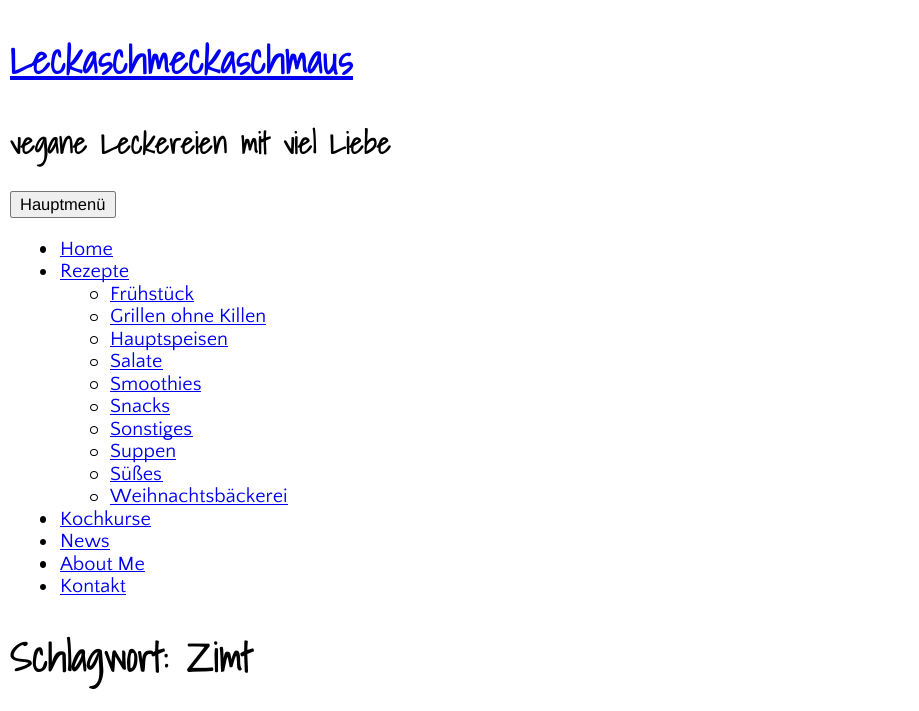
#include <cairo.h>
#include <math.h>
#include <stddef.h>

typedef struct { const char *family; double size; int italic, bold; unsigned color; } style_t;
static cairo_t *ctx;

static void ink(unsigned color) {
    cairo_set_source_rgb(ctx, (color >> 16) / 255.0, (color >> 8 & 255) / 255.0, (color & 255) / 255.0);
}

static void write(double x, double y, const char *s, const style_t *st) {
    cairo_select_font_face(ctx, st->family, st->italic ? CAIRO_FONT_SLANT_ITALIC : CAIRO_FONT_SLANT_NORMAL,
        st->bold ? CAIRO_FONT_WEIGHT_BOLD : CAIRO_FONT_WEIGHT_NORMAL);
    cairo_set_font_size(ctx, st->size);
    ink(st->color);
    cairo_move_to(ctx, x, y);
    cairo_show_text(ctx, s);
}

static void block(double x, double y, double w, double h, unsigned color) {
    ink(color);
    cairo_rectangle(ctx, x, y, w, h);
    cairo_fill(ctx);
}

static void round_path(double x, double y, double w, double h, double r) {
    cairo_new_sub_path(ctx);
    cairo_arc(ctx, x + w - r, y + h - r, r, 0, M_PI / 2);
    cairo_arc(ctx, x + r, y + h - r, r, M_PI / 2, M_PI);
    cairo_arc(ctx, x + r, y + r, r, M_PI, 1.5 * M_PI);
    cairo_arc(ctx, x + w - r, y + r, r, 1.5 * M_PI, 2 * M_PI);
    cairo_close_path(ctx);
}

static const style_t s1 = {"Shadows Into Light", 40, 0, 1, 0x0000ee};
static const style_t s2 = {"Shadows Into Light", 30, 0, 1, 0x000000};
static const style_t s3 = {"Liberation Sans", 16.5, 0, 0, 0x000000};
static const style_t s4 = {"Quattrocento Sans", 20, 0, 0, 0x0000ee};
static const style_t s5 = {"Shadows Into Light", 40, 0, 1, 0x000000};

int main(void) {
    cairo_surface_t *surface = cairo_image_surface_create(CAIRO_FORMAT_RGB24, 919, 711);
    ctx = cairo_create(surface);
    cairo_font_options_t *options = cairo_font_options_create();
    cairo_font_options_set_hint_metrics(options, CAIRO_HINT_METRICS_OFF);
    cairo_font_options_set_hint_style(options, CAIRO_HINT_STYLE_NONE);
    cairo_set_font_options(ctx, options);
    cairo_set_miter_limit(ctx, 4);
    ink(0xffffff);
    cairo_paint(ctx);
    write(10, 74, "Leckaschmeckaschmaus", &s1);
    block(10, 76, 343, 4, 0x0000ee);
    write(10, 154, "vegane Leckereien mit viel Liebe", &s2);
    ink(0xefefef);
    round_path(10.5, 191.5, 105, 26, 2);
    cairo_fill_preserve(ctx);
    ink(0x767676);
    cairo_set_line_width(ctx, 1);
    cairo_stroke(ctx);
    write(20, 210, "Hauptmenü", &s3);
    round_path(40, 246, 6, 7, 3);
    cairo_fill(ctx);
    write(60, 255, "Home", &s4);
    block(60, 256, 53, 1, 0x0000ee);
    ink(0x000000);
    cairo_new_path(ctx);
    cairo_arc(ctx, 43, 272, 3, 0, 2 * M_PI);
    cairo_fill(ctx);
    block(60, 279, 69, 1, 0x0000ee);
    write(60, 277, "Rezepte", &s4);
    cairo_new_path(ctx);
    cairo_arc(ctx, 94, 295, 3.5, 0, 2 * M_PI);
    ink(0x000000);
    cairo_stroke(ctx);
    write(110, 300, "Frühstück", &s4);
    block(110, 301, 84, 1, 0x0000ee);
    round_path(90.5, 314.5, 7, 6, 3);
    ink(0x000000);
    cairo_stroke(ctx);
    write(110, 322, "Grillen ohne Killen", &s4);
    block(110, 324, 156, 1, 0x0000ee);
    cairo_new_path(ctx);
    cairo_arc(ctx, 94, 340, 3.5, 0, 2 * M_PI);
    ink(0x000000);
    cairo_stroke(ctx);
    block(110, 346, 118, 1, 0x0000ee);
    write(110, 345, "Hauptspeisen", &s4);
    round_path(90.5, 359.5, 7, 6, 3);
    ink(0x000000);
    cairo_stroke(ctx);
    write(110, 367, "Salate", &s4);
    block(110, 369, 53, 1, 0x0000ee);
    cairo_new_path(ctx);
    cairo_arc(ctx, 94, 385, 3.5, 0, 2 * M_PI);
    ink(0x000000);
    cairo_stroke(ctx);
    write(110, 390, "Smoothies", &s4);
    block(110, 391, 91, 1, 0x0000ee);
    round_path(90.5, 404.5, 7, 6, 3);
    ink(0x000000);
    cairo_stroke(ctx);
    write(110, 412, "Snacks", &s4);
    block(110, 414, 60, 1, 0x0000ee);
    cairo_new_path(ctx);
    cairo_arc(ctx, 94, 430, 3.5, 0, 2 * M_PI);
    ink(0x000000);
    cairo_stroke(ctx);
    block(110, 436, 83, 1, 0x0000ee);
    write(110, 435, "Sonstiges", &s4);
    round_path(90.5, 449.5, 7, 6, 3);
    ink(0x000000);
    cairo_stroke(ctx);
    block(110, 459, 66, 1, 0x0000ee);
    write(110, 457, "Suppen", &s4);
    cairo_new_path(ctx);
    cairo_arc(ctx, 94, 475, 3.5, 0, 2 * M_PI);
    ink(0x000000);
    cairo_stroke(ctx);
    write(110, 480, "Süßes", &s4);
    block(110, 481, 53, 1, 0x0000ee);
    round_path(90.5, 494.5, 7, 6, 3);
    ink(0x000000);
    cairo_stroke(ctx);
    write(110, 502, "Weihnachtsbäckerei", &s4);
    block(110, 504, 178, 1, 0x0000ee);
    ink(0x000000);
    round_path(40, 516, 6, 7, 3);
    cairo_fill(ctx);
    write(60, 525, "Kochkurse", &s4);
    block(60, 526, 91, 1, 0x0000ee);
    ink(0x000000);
    cairo_new_path(ctx);
    cairo_arc(ctx, 43, 542, 3, 0, 2 * M_PI);
    cairo_fill(ctx);
    write(60, 547, "News", &s4);
    block(60, 549, 50, 1, 0x0000ee);
    ink(0x000000);
    round_path(40, 561, 6, 7, 3);
    cairo_fill(ctx);
    write(60, 570, "About Me", &s4);
    block(60, 571, 85, 1, 0x0000ee);
    ink(0x000000);
    cairo_new_path(ctx);
    cairo_arc(ctx, 43, 587, 3, 0, 2 * M_PI);
    cairo_fill(ctx);
    write(60, 592, "Kontakt", &s4);
    block(60, 594, 66, 1, 0x0000ee);
    write(10, 672, "Schlagwort: Zimt", &s5);
    cairo_surface_write_to_png(surface, "screenshot.png");
    cairo_font_options_destroy(options);
    cairo_destroy(ctx);
    cairo_surface_destroy(surface);
    return 0;
}
